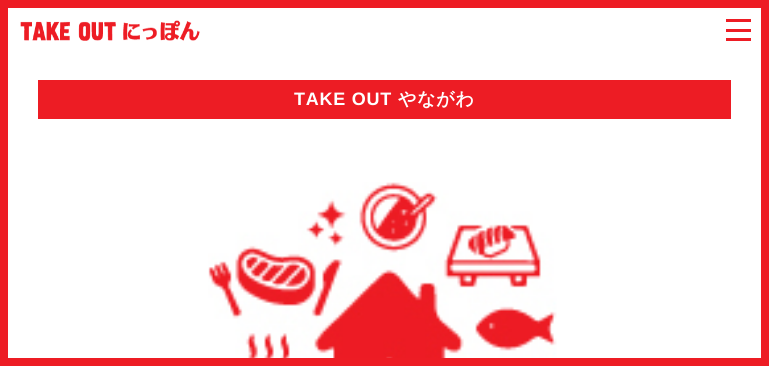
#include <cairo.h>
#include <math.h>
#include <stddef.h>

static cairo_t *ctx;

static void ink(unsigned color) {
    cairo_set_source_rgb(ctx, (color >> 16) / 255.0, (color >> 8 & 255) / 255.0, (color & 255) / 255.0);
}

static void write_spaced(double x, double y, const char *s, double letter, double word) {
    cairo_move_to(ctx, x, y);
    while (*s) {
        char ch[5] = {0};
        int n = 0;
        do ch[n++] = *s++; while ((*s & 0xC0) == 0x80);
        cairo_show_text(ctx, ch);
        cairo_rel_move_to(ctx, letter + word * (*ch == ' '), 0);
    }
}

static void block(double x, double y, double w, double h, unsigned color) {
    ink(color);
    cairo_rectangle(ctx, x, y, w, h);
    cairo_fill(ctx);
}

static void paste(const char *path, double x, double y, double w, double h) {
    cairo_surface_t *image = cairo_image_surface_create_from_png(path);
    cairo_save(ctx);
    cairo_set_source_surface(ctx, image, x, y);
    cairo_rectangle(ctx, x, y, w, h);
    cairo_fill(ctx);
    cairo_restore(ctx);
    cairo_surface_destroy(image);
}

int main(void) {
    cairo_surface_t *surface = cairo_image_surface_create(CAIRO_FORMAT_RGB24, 769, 366);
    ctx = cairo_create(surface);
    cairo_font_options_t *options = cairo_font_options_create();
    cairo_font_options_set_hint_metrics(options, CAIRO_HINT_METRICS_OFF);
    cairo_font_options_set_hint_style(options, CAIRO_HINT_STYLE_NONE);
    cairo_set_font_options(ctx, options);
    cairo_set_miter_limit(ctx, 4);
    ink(0xffffff);
    cairo_paint(ctx);
    block(0, 0, 769, 8, 0xed1c24);
    block(0, 358, 769, 8, 0xed1c24);
    block(0, 0, 8, 366, 0xed1c24);
    paste("pic1.png", 20, 20, 180, 21);
    block(726, 19, 25, 3, 0xed1c24);
    block(726, 29, 25, 3, 0xed1c24);
    block(726, 38, 25, 3, 0xed1c24);
    block(38, 80, 693, 39, 0xed1c24);
    cairo_select_font_face(ctx, "Liberation Sans", CAIRO_FONT_SLANT_NORMAL, CAIRO_FONT_WEIGHT_BOLD);
    cairo_set_font_size(ctx, 18);
    ink(0xffffff);
    write_spaced(294, 105, "TAKE OUT", 0.75, 0);
    cairo_select_font_face(ctx, "WenQuanYi Zen Hei", CAIRO_FONT_SLANT_NORMAL, CAIRO_FONT_WEIGHT_BOLD);
    write_spaced(398, 105, "やながわ", 0.75, 0);
    paste("pic2.png", 208, 182, 349, 176);
    block(761, 0, 8, 366, 0xed1c24);
    cairo_surface_write_to_png(surface, "screenshot.png");
    cairo_font_options_destroy(options);
    cairo_destroy(ctx);
    cairo_surface_destroy(surface);
    return 0;
}
